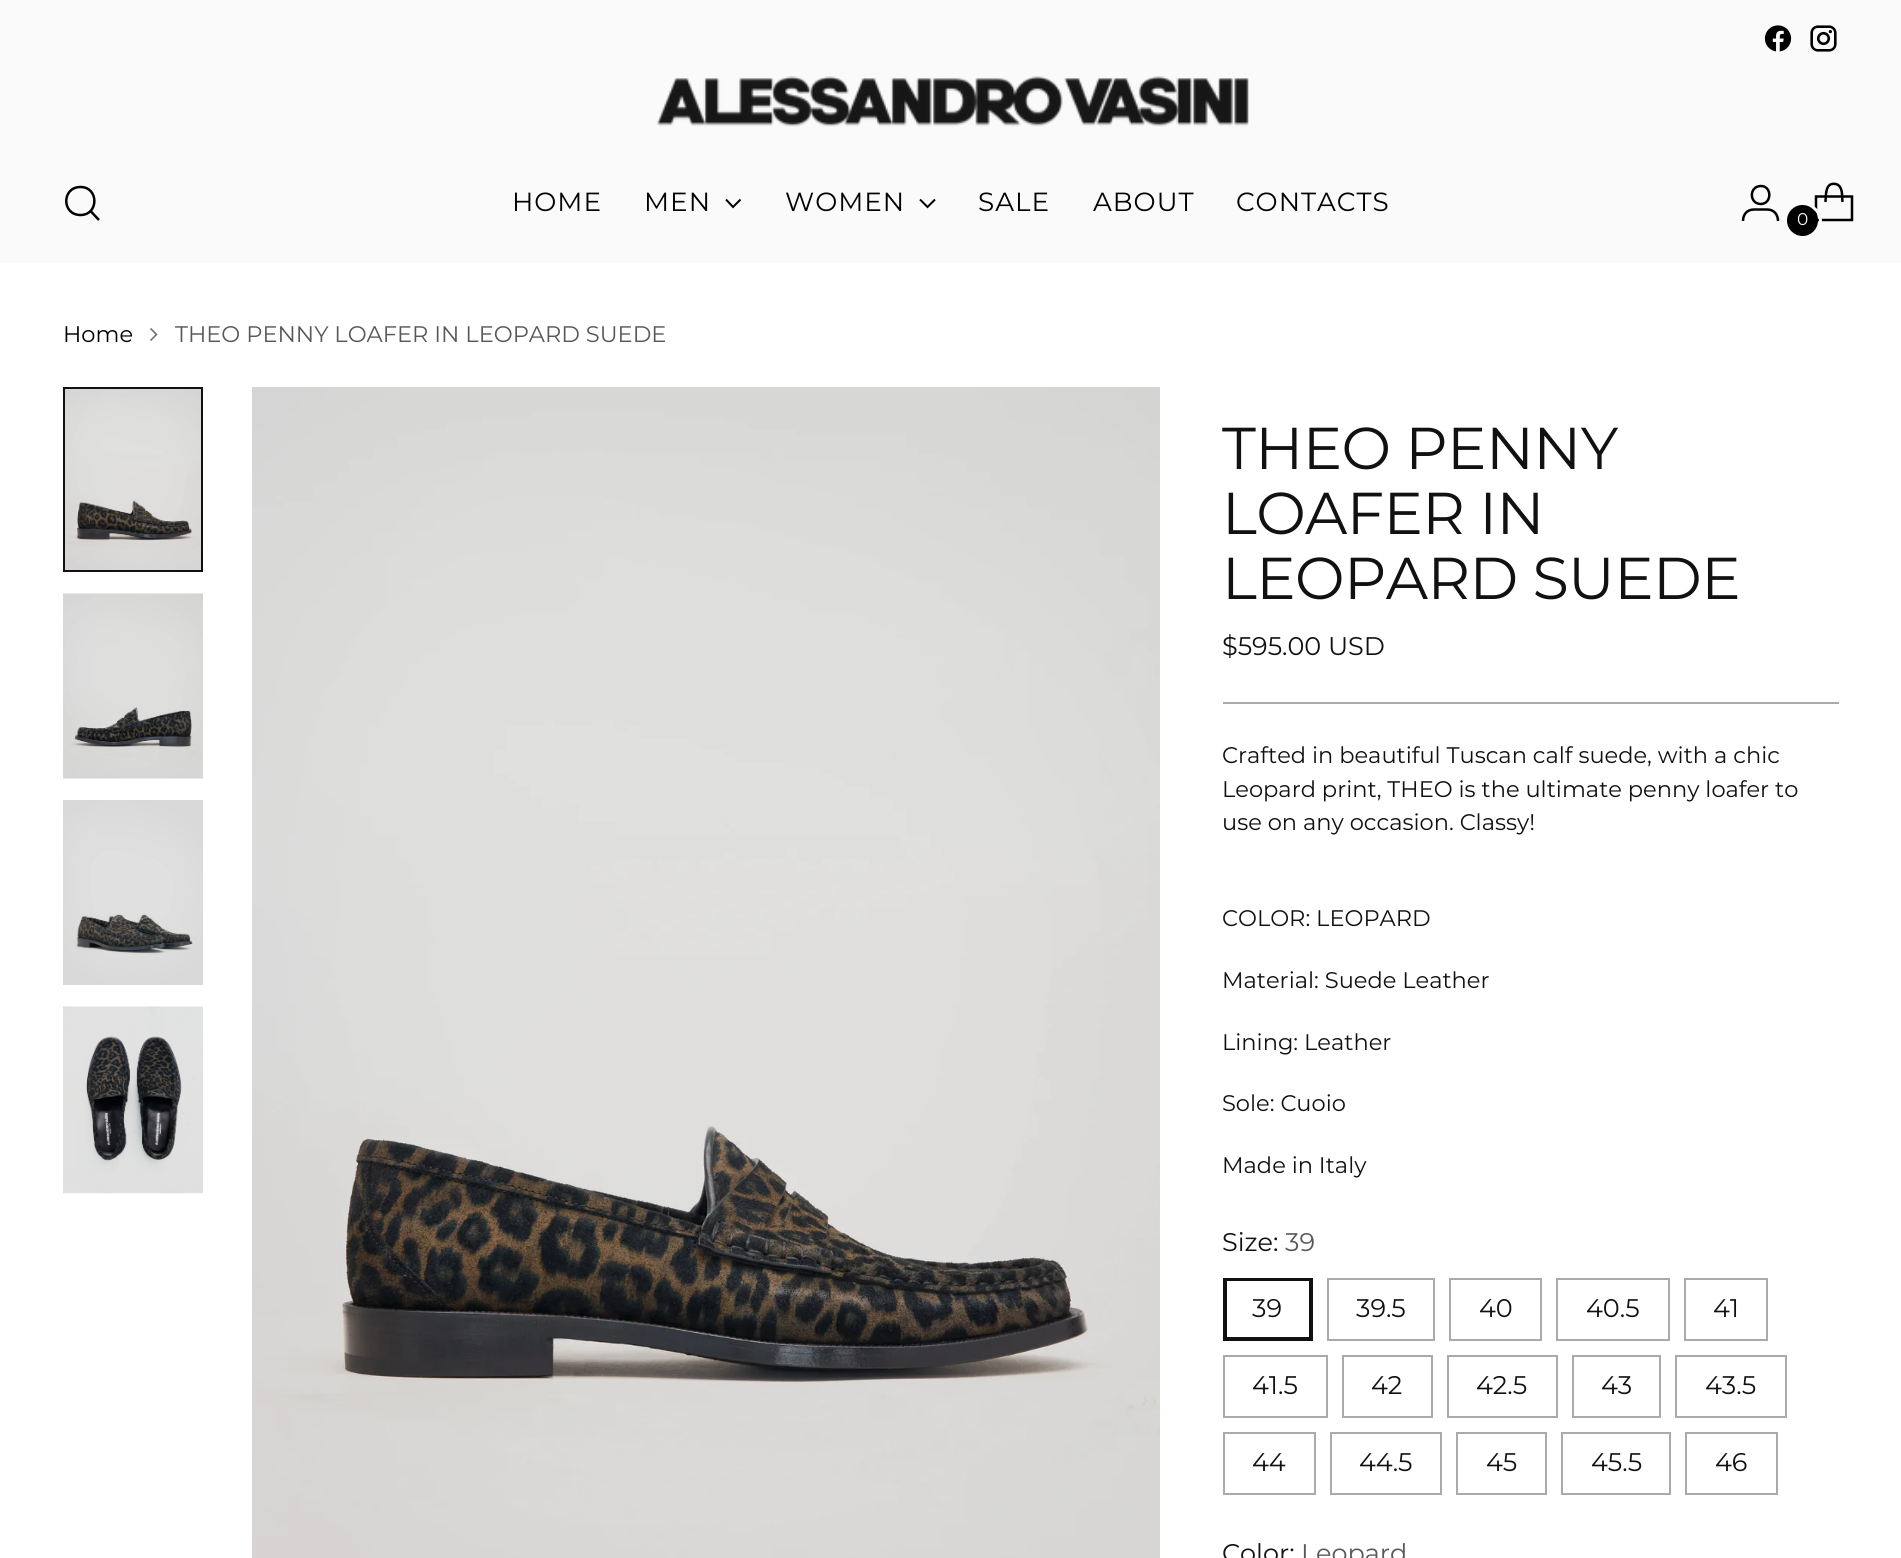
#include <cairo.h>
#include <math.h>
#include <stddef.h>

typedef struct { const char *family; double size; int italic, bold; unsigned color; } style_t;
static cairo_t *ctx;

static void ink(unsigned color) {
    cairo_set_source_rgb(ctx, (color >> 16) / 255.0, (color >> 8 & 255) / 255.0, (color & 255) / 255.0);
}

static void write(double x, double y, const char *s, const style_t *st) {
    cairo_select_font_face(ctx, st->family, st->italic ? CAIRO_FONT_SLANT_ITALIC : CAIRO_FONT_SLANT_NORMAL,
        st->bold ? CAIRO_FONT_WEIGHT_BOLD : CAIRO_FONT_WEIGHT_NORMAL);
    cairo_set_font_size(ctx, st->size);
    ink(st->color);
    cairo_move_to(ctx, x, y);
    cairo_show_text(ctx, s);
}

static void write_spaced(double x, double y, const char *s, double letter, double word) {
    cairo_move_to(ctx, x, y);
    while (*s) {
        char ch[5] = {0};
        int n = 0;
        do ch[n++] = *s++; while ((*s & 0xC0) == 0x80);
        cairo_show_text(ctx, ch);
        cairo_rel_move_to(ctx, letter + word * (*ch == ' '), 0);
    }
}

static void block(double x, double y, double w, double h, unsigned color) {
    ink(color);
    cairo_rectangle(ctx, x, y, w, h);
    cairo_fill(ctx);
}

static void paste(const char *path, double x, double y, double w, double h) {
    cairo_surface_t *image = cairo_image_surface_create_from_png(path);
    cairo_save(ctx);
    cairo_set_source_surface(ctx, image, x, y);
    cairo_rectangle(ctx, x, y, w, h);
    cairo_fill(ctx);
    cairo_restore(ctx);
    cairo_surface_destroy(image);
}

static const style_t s1 = {"Montserrat", 17, 0, 0, 0xfafafa};
static const style_t s2 = {"Montserrat", 22.55, 0, 0, 0x000000};
static const style_t s3 = {"Montserrat", 22.55, 0, 0, 0x585858};
static const style_t s4 = {"Montserrat", 25.5, 0, 0, 0x111111};
static const style_t s5 = {"Montserrat", 22.55, 0, 0, 0x111111};
static const style_t s6 = {"Montserrat", 25.5, 0, 0, 0x585858};

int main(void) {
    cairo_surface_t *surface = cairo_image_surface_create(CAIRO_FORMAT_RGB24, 1901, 1558);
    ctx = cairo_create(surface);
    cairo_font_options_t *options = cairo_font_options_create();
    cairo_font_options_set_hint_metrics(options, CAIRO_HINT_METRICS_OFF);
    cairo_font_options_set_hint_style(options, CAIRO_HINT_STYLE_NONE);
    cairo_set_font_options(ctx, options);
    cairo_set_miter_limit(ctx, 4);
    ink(0xffffff);
    cairo_paint(ctx);
    block(0, 0, 1901, 263, 0xfafafa);
    paste("pic1.png", 1764, 25, 28, 27);
    paste("pic2.png", 1810, 25, 27, 27);
    paste("pic3.png", 657, 76, 592, 51);
    cairo_new_path(ctx);
    cairo_move_to(ctx, 80.5, 215);
    cairo_curve_to(ctx, 99, 215, 99, 187, 80.5, 187);
    cairo_curve_to(ctx, 61.5, 187, 61.5, 215, 80.5, 215);
    cairo_close_path(ctx);
    ink(0x000000);
    cairo_set_line_width(ctx, 2.5);
    cairo_set_line_cap(ctx, CAIRO_LINE_CAP_ROUND);
    cairo_stroke(ctx);
    cairo_new_path(ctx);
    cairo_move_to(ctx, 90.5, 211);
    cairo_line_to(ctx, 99, 220);
    cairo_set_line_cap(ctx, CAIRO_LINE_CAP_BUTT);
    cairo_stroke(ctx);
    cairo_select_font_face(ctx, "Montserrat", CAIRO_FONT_SLANT_NORMAL, CAIRO_FONT_WEIGHT_NORMAL);
    cairo_set_font_size(ctx, 26.25);
    write_spaced(512, 211, "HOME", 1, 0);
    write_spaced(644, 211, "MEN", 1, 0);
    cairo_new_path(ctx);
    cairo_move_to(ctx, 726, 199.5);
    cairo_line_to(ctx, 733, 207);
    cairo_line_to(ctx, 740.5, 199.5);
    cairo_set_line_width(ctx, 2);
    cairo_stroke(ctx);
    write_spaced(785, 211, "WOMEN", 1, 0);
    cairo_new_path(ctx);
    cairo_move_to(ctx, 920, 199.5);
    cairo_line_to(ctx, 927.5, 207);
    cairo_line_to(ctx, 935, 199.5);
    cairo_stroke(ctx);
    write_spaced(978, 211, "SALE", 1, 0);
    write_spaced(1093, 211, "ABOUT", 1, 0);
    write_spaced(1236, 211, "CONTACTS", 1, 0);
    cairo_new_path(ctx);
    cairo_move_to(ctx, 1760.5, 204);
    cairo_curve_to(ctx, 1772.5, 204, 1772, 185.5, 1760.5, 186);
    cairo_curve_to(ctx, 1749, 186.5, 1749, 203.5, 1760.5, 204);
    cairo_close_path(ctx);
    cairo_move_to(ctx, 1743, 221);
    cairo_curve_to(ctx, 1743, 215, 1746.5, 209.5, 1754, 209.5);
    cairo_line_to(ctx, 1767, 209.5);
    cairo_curve_to(ctx, 1774.5, 209.5, 1778, 215, 1778, 221);
    cairo_set_line_width(ctx, 2.5);
    cairo_stroke(ctx);
    cairo_new_path(ctx);
    cairo_move_to(ctx, 1842.5, 202);
    cairo_curve_to(ctx, 1842, 197.5, 1842.5, 193, 1841, 189);
    cairo_curve_to(ctx, 1840, 186.5, 1838.5, 184.5, 1835.5, 184);
    cairo_curve_to(ctx, 1825, 182, 1826, 195.5, 1825.5, 202);
    cairo_set_line_join(ctx, CAIRO_LINE_JOIN_BEVEL);
    cairo_stroke(ctx);
    cairo_new_path(ctx);
    cairo_move_to(ctx, 1852, 220);
    cairo_line_to(ctx, 1852, 196.5);
    cairo_line_to(ctx, 1816, 196.5);
    cairo_line_to(ctx, 1816, 220);
    cairo_close_path(ctx);
    cairo_set_line_join(ctx, CAIRO_LINE_JOIN_MITER);
    cairo_stroke(ctx);
    cairo_arc(ctx, 1803.5, 221.5, 17, 0, 2 * M_PI);
    ink(0xfafafa);
    cairo_set_line_width(ctx, 3);
    cairo_stroke(ctx);
    ink(0x000000);
    cairo_arc(ctx, 1802.5, 220.5, 15.5, 0, 2 * M_PI);
    cairo_fill(ctx);
    write(1797, 225, "0", &s1);
    write(63, 342, "Home", &s2);
    cairo_new_path(ctx);
    cairo_move_to(ctx, 150.5, 340.5);
    cairo_line_to(ctx, 156.5, 334.5);
    cairo_line_to(ctx, 150.5, 328.5);
    ink(0x707070);
    cairo_set_line_width(ctx, 1.6);
    cairo_stroke(ctx);
    write(175, 342, "THEO PENNY LOAFER IN LEOPARD SUEDE", &s3);
    paste("pic4.png", 65, 389, 136, 181);
    cairo_rectangle(ctx, 64, 388, 138, 183);
    ink(0x111111);
    cairo_set_line_width(ctx, 2);
    cairo_stroke(ctx);
    paste("pic5.png", 63, 593, 140, 186);
    paste("pic6.png", 63, 800, 140, 185);
    paste("pic7.png", 63, 1006, 140, 188);
    paste("pic8.png", 252, 387, 908, 1171);
    block(1223, 702, 616, 2, 0xaaaaaa);
    cairo_set_font_size(ctx, 59);
    ink(0x111111);
    write_spaced(1222, 469, "THEO PENNY", -0.6, 0);
    write_spaced(1222, 534, "LOAFER IN", -0.6, 0);
    write_spaced(1222, 599, "LEOPARD SUEDE", -0.6, 0);
    write(1222, 655, "$595.00 USD", &s4);
    write(1222, 763, "Crafted in beautiful Tuscan calf suede, with a chic", &s5);
    write(1222, 797, "Leopard print, THEO is the ultimate penny loafer to", &s5);
    write(1222, 830, "use on any occasion. Classy!", &s5);
    write(1222, 926, "COLOR: LEOPARD", &s5);
    write(1222, 988, "Material: Suede Leather", &s5);
    write(1222, 1050, "Lining: Leather", &s5);
    write(1222, 1111, "Sole: Cuoio", &s5);
    write(1222, 1173, "Made in Italy", &s5);
    write(1222, 1251, "Size:", &s4);
    write(1285, 1251, "39", &s6);
    cairo_rectangle(ctx, 1226, 1280, 84, 58);
    ink(0x111111);
    cairo_stroke(ctx);
    cairo_rectangle(ctx, 1224, 1279, 88, 61);
    cairo_stroke(ctx);
    write(1252, 1317, "39", &s4);
    cairo_rectangle(ctx, 1328, 1279, 106, 61);
    ink(0xaaaaaa);
    cairo_stroke(ctx);
    write(1356, 1317, "39.5", &s4);
    cairo_rectangle(ctx, 1450, 1279, 91, 61);
    ink(0xaaaaaa);
    cairo_stroke(ctx);
    write(1479, 1317, "40", &s4);
    cairo_rectangle(ctx, 1557, 1279, 112, 61);
    ink(0xaaaaaa);
    cairo_stroke(ctx);
    write(1586, 1317, "40.5", &s4);
    cairo_rectangle(ctx, 1685, 1279, 82, 61);
    ink(0xaaaaaa);
    cairo_stroke(ctx);
    write(1713, 1317, "41", &s4);
    cairo_rectangle(ctx, 1224, 1356, 103, 61);
    ink(0xaaaaaa);
    cairo_stroke(ctx);
    write(1252, 1394, "41.5", &s4);
    cairo_rectangle(ctx, 1343, 1356, 89, 61);
    ink(0xaaaaaa);
    cairo_stroke(ctx);
    write(1371, 1394, "42", &s4);
    cairo_rectangle(ctx, 1448, 1356, 109, 61);
    ink(0xaaaaaa);
    cairo_stroke(ctx);
    write(1476, 1394, "42.5", &s4);
    cairo_rectangle(ctx, 1573, 1356, 87, 61);
    ink(0xaaaaaa);
    cairo_stroke(ctx);
    write(1601, 1394, "43", &s4);
    cairo_rectangle(ctx, 1676, 1356, 110, 61);
    ink(0xaaaaaa);
    cairo_stroke(ctx);
    write(1705, 1394, "43.5", &s4);
    cairo_rectangle(ctx, 1224, 1433, 91, 61);
    ink(0xaaaaaa);
    cairo_stroke(ctx);
    write(1252, 1471, "44", &s4);
    cairo_rectangle(ctx, 1331, 1433, 110, 61);
    ink(0xaaaaaa);
    cairo_stroke(ctx);
    write(1359, 1471, "44.5", &s4);
    cairo_rectangle(ctx, 1457, 1433, 89, 61);
    ink(0xaaaaaa);
    cairo_stroke(ctx);
    write(1486, 1471, "45", &s4);
    cairo_rectangle(ctx, 1562, 1433, 108, 61);
    ink(0xaaaaaa);
    cairo_stroke(ctx);
    write(1591, 1471, "45.5", &s4);
    cairo_rectangle(ctx, 1686, 1433, 91, 61);
    ink(0xaaaaaa);
    cairo_stroke(ctx);
    write(1715, 1471, "46", &s4);
    write(1222, 1562, "Color:", &s4);
    write(1301, 1562, "Leopard", &s6);
    cairo_surface_write_to_png(surface, "screenshot.png");
    cairo_font_options_destroy(options);
    cairo_destroy(ctx);
    cairo_surface_destroy(surface);
    return 0;
}
